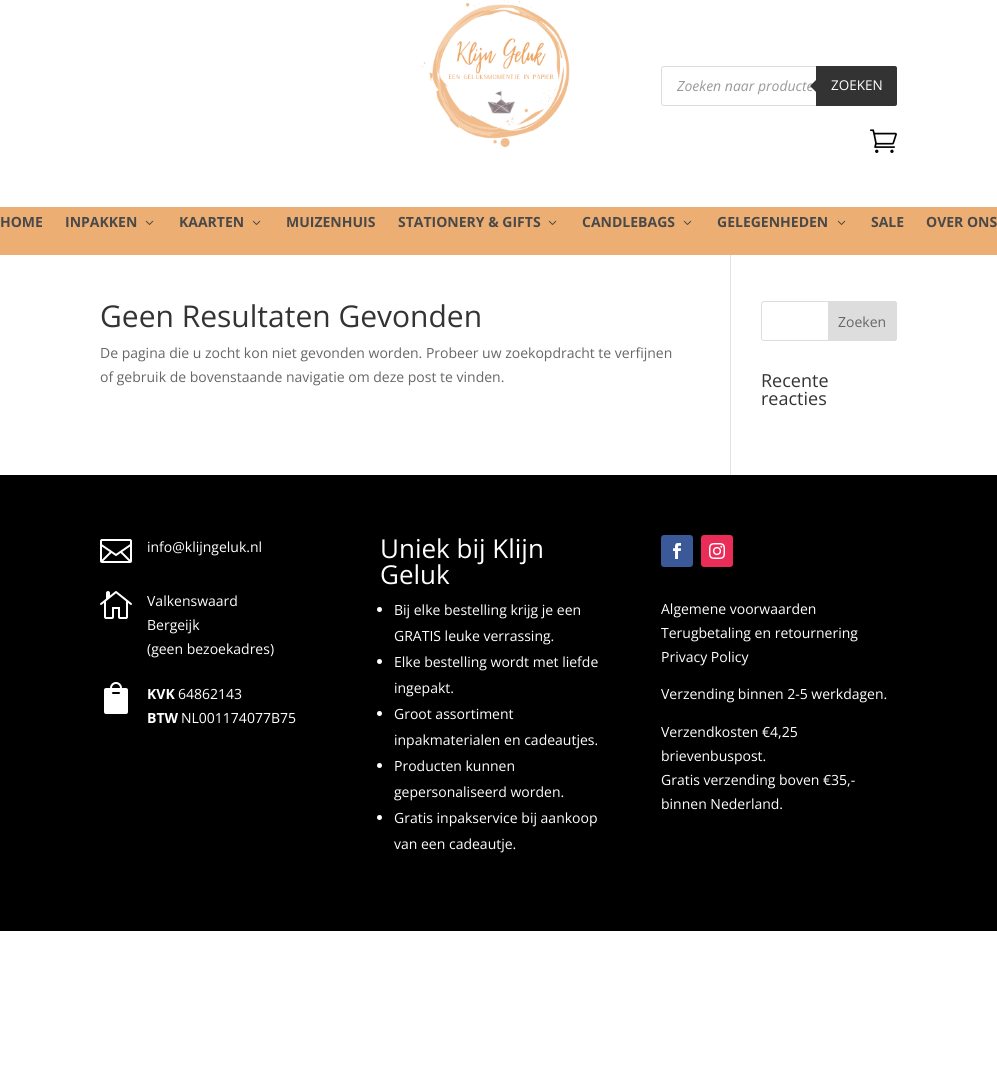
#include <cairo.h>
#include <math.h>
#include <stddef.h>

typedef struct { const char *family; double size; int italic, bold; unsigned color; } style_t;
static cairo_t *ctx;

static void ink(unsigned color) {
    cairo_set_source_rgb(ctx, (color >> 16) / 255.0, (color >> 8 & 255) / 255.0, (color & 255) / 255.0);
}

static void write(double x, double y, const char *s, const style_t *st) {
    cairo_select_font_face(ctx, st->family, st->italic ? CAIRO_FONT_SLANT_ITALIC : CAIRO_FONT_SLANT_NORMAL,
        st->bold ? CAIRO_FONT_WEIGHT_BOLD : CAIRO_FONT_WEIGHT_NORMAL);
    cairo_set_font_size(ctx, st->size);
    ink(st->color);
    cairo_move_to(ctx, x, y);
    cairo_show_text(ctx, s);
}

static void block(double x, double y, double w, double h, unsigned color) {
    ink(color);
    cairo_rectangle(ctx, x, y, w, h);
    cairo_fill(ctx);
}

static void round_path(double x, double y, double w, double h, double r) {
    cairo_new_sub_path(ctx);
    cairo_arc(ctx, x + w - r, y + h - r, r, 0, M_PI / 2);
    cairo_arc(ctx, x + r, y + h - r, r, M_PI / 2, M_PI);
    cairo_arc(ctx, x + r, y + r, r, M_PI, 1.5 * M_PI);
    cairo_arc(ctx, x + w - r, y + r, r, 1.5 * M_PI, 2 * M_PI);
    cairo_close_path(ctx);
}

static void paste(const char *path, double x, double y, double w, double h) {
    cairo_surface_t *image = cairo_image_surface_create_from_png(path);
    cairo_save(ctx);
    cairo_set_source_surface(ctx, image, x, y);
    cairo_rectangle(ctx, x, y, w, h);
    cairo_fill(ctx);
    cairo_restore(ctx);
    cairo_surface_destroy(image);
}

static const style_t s1 = {"Open Sans", 14, 1, 0, 0x999999};
static const style_t s2 = {"Open Sans", 13.5, 0, 0, 0xffffff};
static const style_t s3 = {"Open Sans", 14, 0, 1, 0x494949};
static const style_t s4 = {"Open Sans", 30, 0, 0, 0x333333};
static const style_t s5 = {"Open Sans", 14, 0, 0, 0x666666};
static const style_t s6 = {"Open Sans", 18, 0, 0, 0x333333};
static const style_t s7 = {"Open Sans", 14, 0, 0, 0xffffff};
static const style_t s8 = {"Open Sans", 14, 0, 1, 0xffffff};
static const style_t s9 = {"Open Sans", 26, 0, 0, 0xffffff};

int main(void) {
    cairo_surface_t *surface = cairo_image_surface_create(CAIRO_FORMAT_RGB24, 997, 1067);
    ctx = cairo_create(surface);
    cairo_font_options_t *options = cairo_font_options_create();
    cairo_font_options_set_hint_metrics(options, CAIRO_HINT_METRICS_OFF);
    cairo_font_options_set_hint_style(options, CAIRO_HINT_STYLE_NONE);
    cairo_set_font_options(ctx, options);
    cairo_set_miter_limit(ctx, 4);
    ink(0xffffff);
    cairo_paint(ctx);
    paste("pic1.png", 421, 0, 149, 147);
    round_path(661.5, 66.5, 235, 39, 2.5);
    ink(0xdddddd);
    cairo_set_line_width(ctx, 1);
    cairo_stroke(ctx);
    write(677, 91, "Zoeken naar producte", &s1);
    ink(0x333333);
    cairo_new_path(ctx);
    cairo_move_to(ctx, 816, 66);
    cairo_line_to(ctx, 895, 66);
    cairo_curve_to(ctx, 896, 66, 897, 67, 897, 68);
    cairo_line_to(ctx, 897, 104);
    cairo_curve_to(ctx, 897, 105, 896, 106, 895, 106);
    cairo_line_to(ctx, 816, 106);
    cairo_close_path(ctx);
    cairo_fill(ctx);
    cairo_new_path(ctx);
    cairo_move_to(ctx, 818, 78);
    cairo_line_to(ctx, 818, 94);
    cairo_line_to(ctx, 810, 86);
    cairo_close_path(ctx);
    cairo_fill(ctx);
    write(831, 90, "ZOEKEN", &s2);
    paste("pic2.png", 870, 129, 27, 24);
    block(0, 207, 997, 48, 0xedae74);
    write(0, 227, "HOME", &s3);
    write(65, 227, "INPAKKEN", &s3);
    paste("pic3.png", 145, 220, 9, 5);
    write(179, 227, "KAARTEN", &s3);
    paste("pic3.png", 252, 220, 9, 5);
    write(286, 227, "MUIZENHUIS", &s3);
    write(398, 227, "STATIONERY & GIFTS", &s3);
    paste("pic3.png", 548, 220, 9, 5);
    write(582, 227, "CANDLEBAGS", &s3);
    paste("pic3.png", 683, 220, 9, 5);
    write(717, 227, "GELEGENHEDEN", &s3);
    paste("pic3.png", 837, 220, 9, 5);
    write(871, 227, "SALE", &s3);
    write(926, 227, "OVER ONS", &s3);
    block(730, 255, 1, 220, 0xe2e2e2);
    write(100, 327, "Geen Resultaten Gevonden", &s4);
    write(100, 358, "De pagina die u zocht kon niet gevonden worden. Probeer uw zoekopdracht te verfijnen", &s5);
    write(100, 382, "of gebruik de bovenstaande navigatie om deze post te vinden.", &s5);
    round_path(761.5, 301.5, 135, 39, 2.5);
    ink(0xdddddd);
    cairo_stroke(ctx);
    cairo_new_path(ctx);
    cairo_move_to(ctx, 828.5, 301.5);
    cairo_line_to(ctx, 894, 301.5);
    cairo_curve_to(ctx, 895.5, 301.5, 896.5, 302.5, 896.5, 304);
    cairo_line_to(ctx, 896.5, 338);
    cairo_curve_to(ctx, 896.5, 339.5, 895.5, 340.5, 894, 340.5);
    cairo_line_to(ctx, 828.5, 340.5);
    cairo_close_path(ctx);
    cairo_fill_preserve(ctx);
    cairo_stroke(ctx);
    write(838, 327, "Zoeken", &s5);
    write(761, 387, "Recente", &s6);
    write(761, 405, "reacties", &s6);
    block(0, 475, 997, 456, 0x000000);
    paste("pic4.png", 100, 539, 32, 24);
    write(147, 552, "info@klijngeluk.nl", &s7);
    paste("pic5.png", 100, 591, 32, 28);
    write(147, 606, "Valkenswaard", &s7);
    write(147, 630, "Bergeijk", &s7);
    write(147, 654, "(geen bezoekadres)", &s7);
    paste("pic6.png", 104, 682, 24, 32);
    write(147, 699, "KVK", &s8);
    write(178, 699, "64862143", &s7);
    write(147, 723, "BTW", &s8);
    write(181, 723, "NL001174077B75", &s7);
    write(380, 558, "Uniek bij Klijn", &s9);
    write(380, 584, "Geluk", &s9);
    cairo_new_path(ctx);
    cairo_arc(ctx, 379.5, 609.5, 2.5, 0, 2 * M_PI);
    cairo_fill(ctx);
    write(394, 615, "Bij elke bestelling krijg je een", &s7);
    write(394, 641, "GRATIS leuke verrassing.", &s7);
    cairo_new_path(ctx);
    cairo_arc(ctx, 379.5, 661.5, 2.5, 0, 2 * M_PI);
    cairo_fill(ctx);
    write(394, 667, "Elke bestelling wordt met liefde", &s7);
    write(394, 693, "ingepakt.", &s7);
    cairo_new_path(ctx);
    cairo_arc(ctx, 379.5, 713.5, 2.5, 0, 2 * M_PI);
    cairo_fill(ctx);
    write(394, 719, "Groot assortiment", &s7);
    write(394, 745, "inpakmaterialen en cadeautjes.", &s7);
    cairo_new_path(ctx);
    cairo_arc(ctx, 379.5, 765.5, 2.5, 0, 2 * M_PI);
    cairo_fill(ctx);
    write(394, 771, "Producten kunnen", &s7);
    write(394, 797, "gepersonaliseerd worden.", &s7);
    cairo_new_path(ctx);
    cairo_arc(ctx, 379.5, 817.5, 2.5, 0, 2 * M_PI);
    cairo_fill(ctx);
    write(394, 823, "Gratis inpakservice bij aankoop", &s7);
    write(394, 849, "van een cadeautje.", &s7);
    ink(0x3b5998);
    round_path(661, 535, 32, 32, 3);
    cairo_fill(ctx);
    paste("pic7.png", 673, 543, 8, 16);
    ink(0xea2c59);
    round_path(701, 535, 32, 32, 3);
    cairo_fill(ctx);
    paste("pic8.png", 709, 543, 16, 16);
    write(661, 614, "Algemene voorwaarden", &s7);
    write(661, 638, "Terugbetaling en retournering", &s7);
    write(661, 662, "Privacy Policy", &s7);
    write(661, 699, "Verzending binnen 2-5 werkdagen.", &s7);
    write(661, 737, "Verzendkosten €4,25", &s7);
    write(661, 761, "brievenbuspost.", &s7);
    write(661, 785, "Gratis verzending boven €35,-", &s7);
    write(661, 809, "binnen Nederland.", &s7);
    cairo_surface_write_to_png(surface, "screenshot.png");
    cairo_font_options_destroy(options);
    cairo_destroy(ctx);
    cairo_surface_destroy(surface);
    return 0;
}
